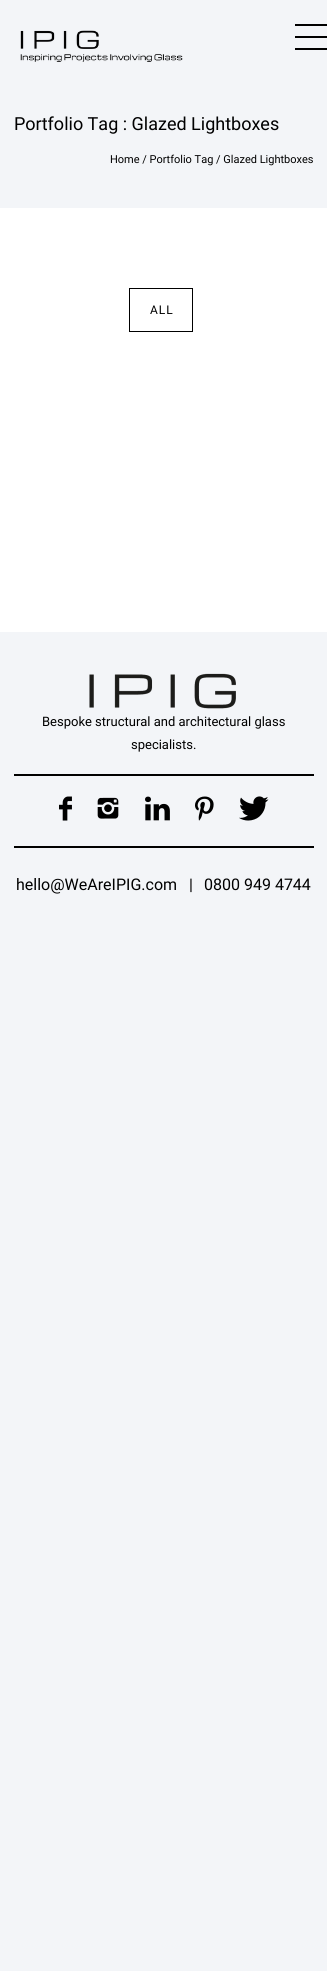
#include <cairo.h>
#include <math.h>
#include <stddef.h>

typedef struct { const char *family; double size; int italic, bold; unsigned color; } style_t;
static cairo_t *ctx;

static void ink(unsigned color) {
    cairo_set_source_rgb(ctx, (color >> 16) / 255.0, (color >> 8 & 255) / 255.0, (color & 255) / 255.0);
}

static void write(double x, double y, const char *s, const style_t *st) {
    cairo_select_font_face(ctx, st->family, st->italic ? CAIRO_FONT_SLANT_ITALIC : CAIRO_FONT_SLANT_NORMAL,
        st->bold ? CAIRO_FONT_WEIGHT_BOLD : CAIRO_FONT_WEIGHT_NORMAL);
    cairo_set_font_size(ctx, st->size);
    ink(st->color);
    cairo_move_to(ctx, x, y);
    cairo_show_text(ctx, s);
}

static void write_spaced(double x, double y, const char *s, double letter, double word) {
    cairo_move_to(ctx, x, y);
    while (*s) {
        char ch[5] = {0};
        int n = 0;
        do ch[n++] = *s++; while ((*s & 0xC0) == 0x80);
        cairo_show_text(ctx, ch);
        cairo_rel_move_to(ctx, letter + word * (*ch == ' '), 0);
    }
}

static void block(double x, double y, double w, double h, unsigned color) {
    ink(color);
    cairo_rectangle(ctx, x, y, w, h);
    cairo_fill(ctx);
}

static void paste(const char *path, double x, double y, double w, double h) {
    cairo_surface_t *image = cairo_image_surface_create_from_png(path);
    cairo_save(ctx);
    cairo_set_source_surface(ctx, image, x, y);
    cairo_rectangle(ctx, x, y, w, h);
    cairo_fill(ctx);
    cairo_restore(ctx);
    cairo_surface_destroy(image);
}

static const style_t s1 = {"Roboto", 18, 0, 0, 0x000000};
static const style_t s2 = {"Roboto", 11, 0, 0, 0x000000};
static const style_t s3 = {"Roboto", 13, 0, 0, 0x000000};
static const style_t s4 = {"Roboto", 16, 0, 0, 0x000000};

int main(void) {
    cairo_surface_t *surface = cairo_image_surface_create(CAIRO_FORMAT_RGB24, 327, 1971);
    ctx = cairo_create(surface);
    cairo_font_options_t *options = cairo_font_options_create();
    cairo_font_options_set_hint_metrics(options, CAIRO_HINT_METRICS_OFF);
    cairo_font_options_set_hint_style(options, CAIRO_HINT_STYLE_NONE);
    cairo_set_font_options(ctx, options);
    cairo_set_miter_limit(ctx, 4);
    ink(0xf3f5f8);
    cairo_paint(ctx);
    paste("pic1.png", 20, 30, 163, 32);
    block(295, 24, 32, 2, 0x000000);
    block(295, 36, 32, 2, 0x000000);
    block(295, 48, 32, 2, 0x000000);
    write(14, 130, "Portfolio Tag : Glazed Lightboxes", &s1);
    write(110, 163, "Home / Portfolio Tag / Glazed Lightboxes", &s2);
    block(0, 208, 327, 424, 0xffffff);
    cairo_rectangle(ctx, 129.5, 288.5, 63, 43);
    ink(0x000000);
    cairo_set_line_width(ctx, 1);
    cairo_stroke(ctx);
    cairo_set_font_size(ctx, 12);
    write_spaced(150, 314, "ALL", 1, 0);
    paste("pic2.png", 89, 673, 147, 36);
    write(42, 726, "Bespoke structural and architectural glass", &s3);
    write(131, 749, "specialists.", &s3);
    block(14, 774, 300, 2, 0x000000);
    paste("pic3.png", 59, 796, 13, 25);
    paste("pic4.png", 97, 797, 22, 22);
    paste("pic5.png", 145, 796, 25, 25);
    paste("pic6.png", 195, 796, 19, 25);
    paste("pic7.png", 239, 796, 30, 25);
    block(14, 846, 300, 2, 0x000000);
    write(16, 890, "hello@WeAreIPIG.com", &s4);
    write(189, 890, "|", &s4);
    write(204, 890, "0800 949 4744", &s4);
    cairo_surface_write_to_png(surface, "screenshot.png");
    cairo_font_options_destroy(options);
    cairo_destroy(ctx);
    cairo_surface_destroy(surface);
    return 0;
}
